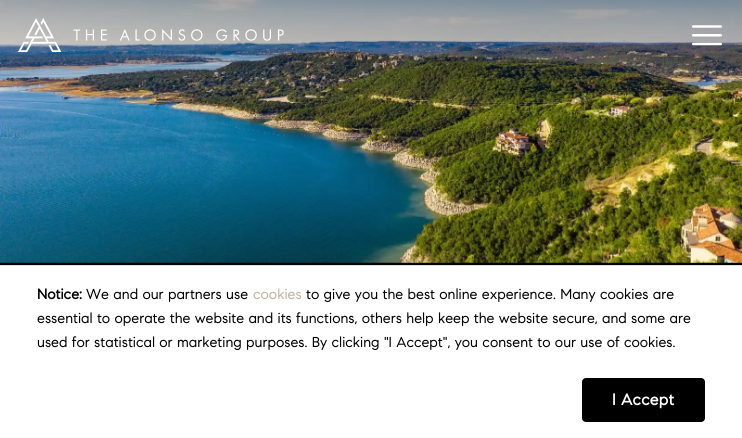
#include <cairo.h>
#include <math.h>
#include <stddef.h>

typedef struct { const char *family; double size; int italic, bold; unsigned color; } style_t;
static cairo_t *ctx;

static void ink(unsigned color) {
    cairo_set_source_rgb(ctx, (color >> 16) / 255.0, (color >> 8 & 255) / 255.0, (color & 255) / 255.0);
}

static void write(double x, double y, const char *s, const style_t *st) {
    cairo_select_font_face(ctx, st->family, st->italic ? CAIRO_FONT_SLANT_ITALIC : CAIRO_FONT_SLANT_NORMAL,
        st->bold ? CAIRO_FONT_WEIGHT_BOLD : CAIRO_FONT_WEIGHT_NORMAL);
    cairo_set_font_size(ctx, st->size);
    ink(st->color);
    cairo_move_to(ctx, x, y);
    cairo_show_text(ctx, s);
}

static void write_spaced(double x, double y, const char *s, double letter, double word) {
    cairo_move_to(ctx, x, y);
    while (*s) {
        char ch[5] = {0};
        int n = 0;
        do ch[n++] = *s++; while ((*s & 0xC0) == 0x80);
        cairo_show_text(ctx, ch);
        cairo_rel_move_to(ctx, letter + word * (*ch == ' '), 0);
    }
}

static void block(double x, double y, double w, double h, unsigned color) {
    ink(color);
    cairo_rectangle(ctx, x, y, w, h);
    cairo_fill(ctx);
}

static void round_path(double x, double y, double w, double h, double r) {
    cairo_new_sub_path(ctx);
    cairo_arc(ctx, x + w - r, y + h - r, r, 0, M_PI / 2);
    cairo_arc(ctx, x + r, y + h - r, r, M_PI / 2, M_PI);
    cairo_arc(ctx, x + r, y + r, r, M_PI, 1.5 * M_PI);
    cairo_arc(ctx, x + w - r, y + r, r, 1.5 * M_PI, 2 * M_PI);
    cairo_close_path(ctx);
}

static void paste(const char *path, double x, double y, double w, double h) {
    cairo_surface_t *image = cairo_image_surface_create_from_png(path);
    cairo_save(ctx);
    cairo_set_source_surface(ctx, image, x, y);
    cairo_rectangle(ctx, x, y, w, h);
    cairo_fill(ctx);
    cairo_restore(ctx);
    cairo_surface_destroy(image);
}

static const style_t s1 = {"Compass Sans", 14.4, 0, 1, 0x000000};
static const style_t s2 = {"Compass Sans", 14.4, 0, 0, 0x000000};
static const style_t s3 = {"Compass Sans", 14.4, 0, 0, 0xbfb1a0};

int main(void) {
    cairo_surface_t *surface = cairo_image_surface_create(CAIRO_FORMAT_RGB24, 742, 438);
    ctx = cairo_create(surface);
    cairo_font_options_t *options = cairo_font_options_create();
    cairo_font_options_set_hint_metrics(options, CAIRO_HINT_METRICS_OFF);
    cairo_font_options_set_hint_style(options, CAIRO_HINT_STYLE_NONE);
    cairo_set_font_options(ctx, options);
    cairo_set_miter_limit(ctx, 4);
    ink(0x000000);
    cairo_paint(ctx);
    paste("pic1.png", 0, 0, 742, 263);
    paste("pic2.png", 18, 18, 266, 34);
    paste("pic3.png", 692, 25, 30, 21);
    block(0, 266, 742, 172, 0xffffff);
    block(0, 265, 742, 1, 0xe1e0e3);
    write(37, 299, "Notice:", &s1);
    write(86, 299, "We and our partners use", &s2);
    write(253, 299, "cookies", &s3);
    write(306, 299, "to give you the best online experience. Many cookies are", &s2);
    write(37, 323, "essential to operate the website and its functions, others help keep the website secure, and some are", &s2);
    write(37, 347, "used for statistical or marketing purposes. By clicking \"I Accept\", you consent to our use of cookies.", &s2);
    round_path(582, 378, 123, 44, 4);
    cairo_fill(ctx);
    cairo_select_font_face(ctx, "Compass Sans", CAIRO_FONT_SLANT_NORMAL, CAIRO_FONT_WEIGHT_BOLD);
    cairo_set_font_size(ctx, 16);
    ink(0xffffff);
    write_spaced(612, 405, "I Accept", 0.25, 0);
    cairo_surface_write_to_png(surface, "screenshot.png");
    cairo_font_options_destroy(options);
    cairo_destroy(ctx);
    cairo_surface_destroy(surface);
    return 0;
}
